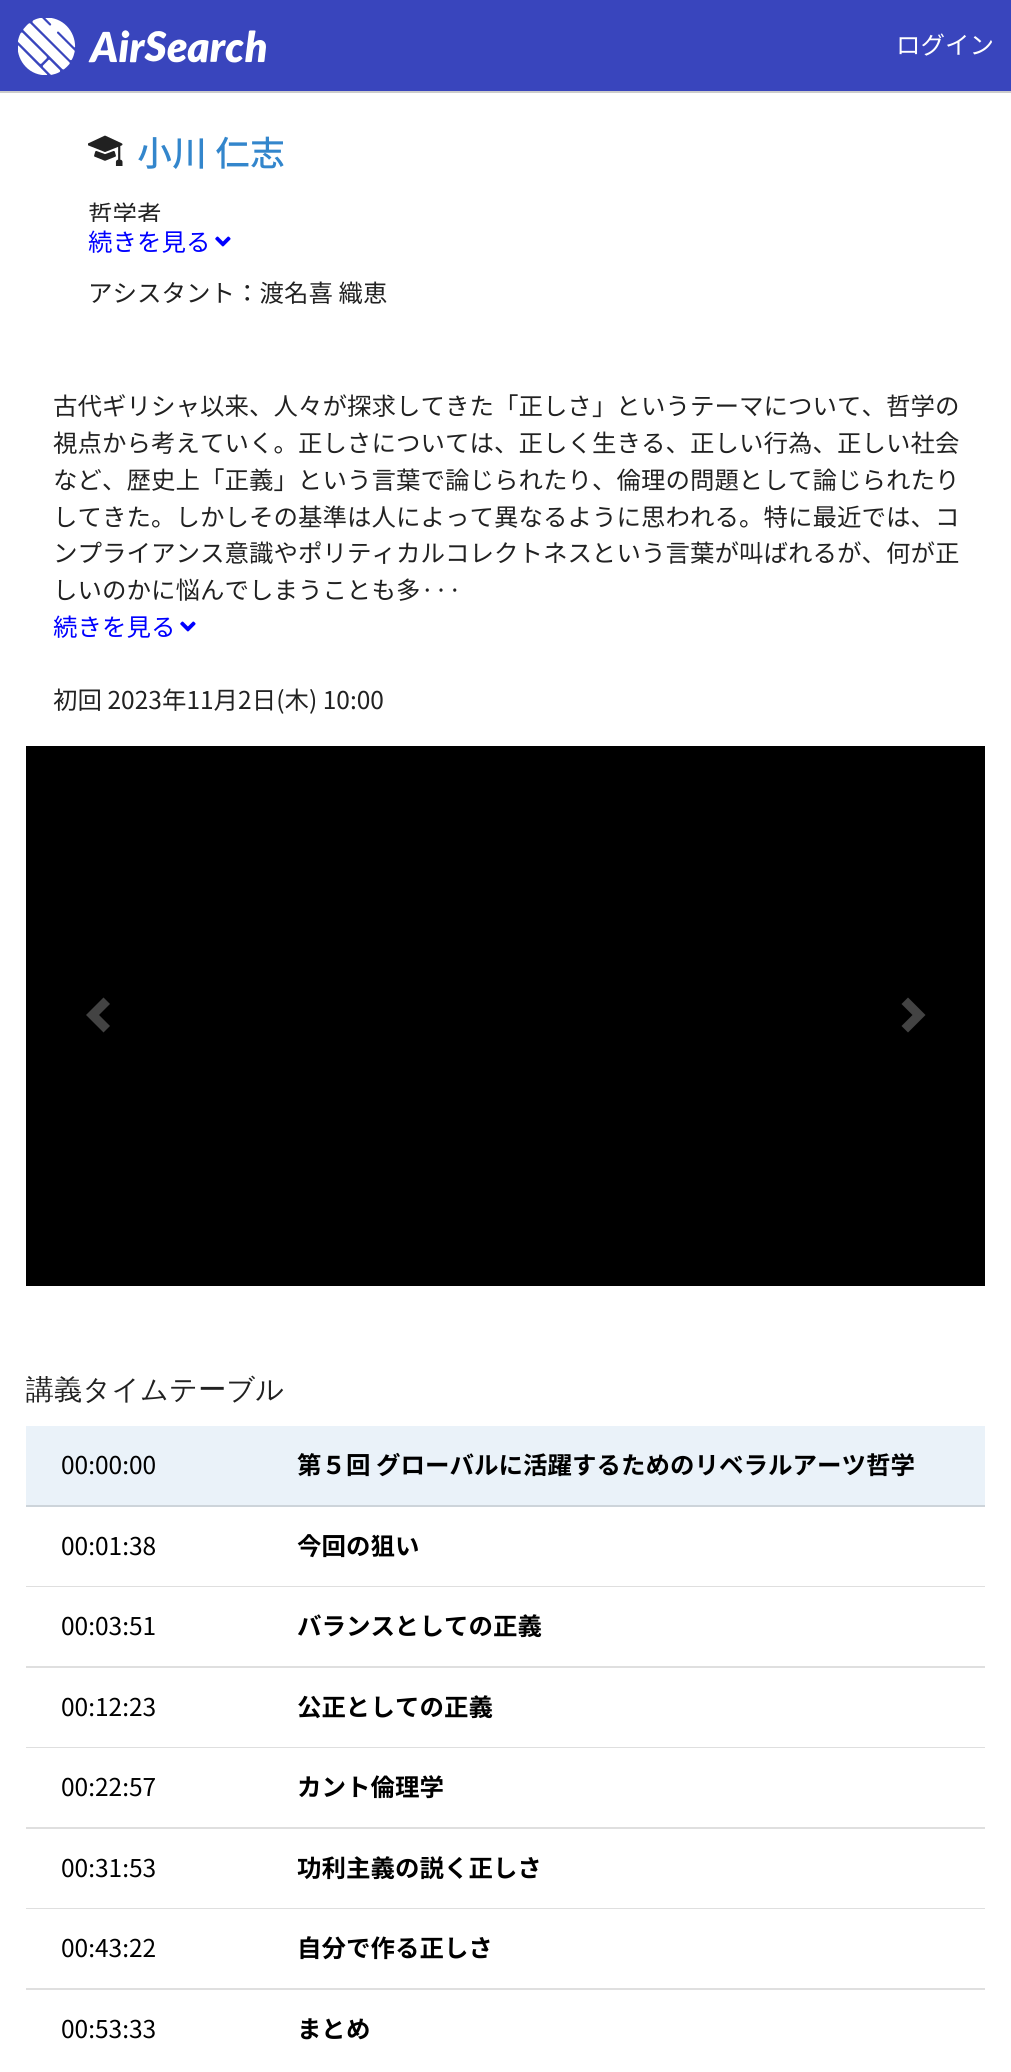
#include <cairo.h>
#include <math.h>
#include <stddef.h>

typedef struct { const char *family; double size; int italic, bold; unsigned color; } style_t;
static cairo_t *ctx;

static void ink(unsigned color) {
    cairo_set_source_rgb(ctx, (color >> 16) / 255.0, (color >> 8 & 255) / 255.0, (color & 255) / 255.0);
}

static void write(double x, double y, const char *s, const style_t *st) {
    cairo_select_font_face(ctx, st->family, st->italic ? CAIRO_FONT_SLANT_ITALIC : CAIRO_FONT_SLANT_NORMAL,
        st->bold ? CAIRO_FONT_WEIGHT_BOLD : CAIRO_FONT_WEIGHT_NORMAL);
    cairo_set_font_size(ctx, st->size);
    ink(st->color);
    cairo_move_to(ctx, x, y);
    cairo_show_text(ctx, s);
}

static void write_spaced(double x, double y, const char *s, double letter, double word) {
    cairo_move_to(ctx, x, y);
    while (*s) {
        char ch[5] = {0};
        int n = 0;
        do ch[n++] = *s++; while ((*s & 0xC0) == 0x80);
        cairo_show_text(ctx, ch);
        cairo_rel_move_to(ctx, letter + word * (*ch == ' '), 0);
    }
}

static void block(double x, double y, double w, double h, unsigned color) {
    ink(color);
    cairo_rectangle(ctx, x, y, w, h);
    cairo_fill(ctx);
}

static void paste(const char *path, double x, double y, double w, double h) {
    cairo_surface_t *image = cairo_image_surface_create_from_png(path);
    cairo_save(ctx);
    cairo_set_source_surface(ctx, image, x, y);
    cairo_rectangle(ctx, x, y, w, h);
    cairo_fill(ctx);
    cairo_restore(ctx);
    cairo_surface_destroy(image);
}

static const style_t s1 = {"Noto Sans JP", 24.5, 0, 0, 0xffffff};
static const style_t s2 = {"Noto Sans JP Medium", 35, 0, 0, 0x3386cc};
static const style_t s3 = {"Noto Sans JP", 24.5, 0, 0, 0x212121};
static const style_t s4 = {"Noto Sans JP", 24.5, 0, 0, 0x0000ff};
static const style_t s5 = {"Noto Sans JP", 24.5, 0, 0, 0x000000};
static const style_t s6 = {"Noto Sans JP", 24.5, 0, 1, 0x000000};

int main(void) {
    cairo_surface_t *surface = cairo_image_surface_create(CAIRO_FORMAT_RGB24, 1011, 2072);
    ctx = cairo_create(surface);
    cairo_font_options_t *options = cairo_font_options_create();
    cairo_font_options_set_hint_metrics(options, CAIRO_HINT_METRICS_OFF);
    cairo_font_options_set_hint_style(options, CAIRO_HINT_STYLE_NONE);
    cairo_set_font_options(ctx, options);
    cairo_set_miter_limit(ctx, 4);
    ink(0xffffff);
    cairo_paint(ctx);
    block(0, 0, 1011, 91, 0x3945bd);
    block(0, 91, 1011, 2, 0xcccccc);
    paste("pic1.png", 18, 18, 248, 57);
    write(896, 54, "ログイン", &s1);
    paste("pic2.png", 88, 135, 35, 31);
    write(137, 166, "小川 仁志", &s2);
    cairo_save(ctx);
    cairo_rectangle(ctx, 88, 194, 836, 28);
    cairo_clip(ctx);
    write(88, 223, "哲学者", &s3);
    cairo_restore(ctx);
    write(88, 251, "続きを見る", &s4);
    paste("pic3.png", 215, 236, 16, 11);
    write(88, 302, "アシスタント：渡名喜 織恵", &s3);
    write(53, 415, "古代ギリシャ以来、人々が探求してきた「正しさ」というテーマについて、哲学の", &s3);
    write(53, 452, "視点から考えていく。正しさについては、正しく生きる、正しい行為、正しい社会", &s3);
    write(53, 489, "など、歴史上「正義」という言葉で論じられたり、倫理の問題として論じられたり", &s3);
    write(53, 526, "してきた。しかしその基準は人によって異なるように思われる。特に最近では、コ", &s3);
    write(53, 562, "ンプライアンス意識やポリティカルコレクトネスという言葉が叫ばれるが、何が正", &s3);
    write(53, 599, "しいのかに悩んでしまうことも多···", &s3);
    write(53, 636, "続きを見る", &s4);
    paste("pic3.png", 180, 621, 16, 11);
    write(53, 709, "初回 2023年11月2日(木) 10:00", &s3);
    block(26, 746, 959, 540, 0x000000);
    ink(0x434343);
    cairo_new_path(ctx);
    cairo_move_to(ctx, 103.5, 997.5);
    cairo_line_to(ctx, 86, 1015);
    cairo_line_to(ctx, 103.5, 1032.5);
    cairo_line_to(ctx, 110, 1026);
    cairo_line_to(ctx, 99, 1015);
    cairo_line_to(ctx, 110, 1004);
    cairo_close_path(ctx);
    cairo_fill(ctx);
    cairo_new_path(ctx);
    cairo_move_to(ctx, 908, 997.5);
    cairo_line_to(ctx, 901.5, 1004);
    cairo_line_to(ctx, 912.5, 1015);
    cairo_line_to(ctx, 901.5, 1026);
    cairo_line_to(ctx, 908, 1032.5);
    cairo_line_to(ctx, 925.5, 1015);
    cairo_close_path(ctx);
    cairo_fill(ctx);
    cairo_select_font_face(ctx, "WenQuanYi Zen Hei Medium", CAIRO_FONT_SLANT_NORMAL, CAIRO_FONT_WEIGHT_NORMAL);
    cairo_set_font_size(ctx, 28);
    ink(0x212121);
    write_spaced(26, 1399, "講義タイムテーブル", 0.25, 0);
    block(26, 1426, 959, 79, 0xeaf2f9);
    block(26, 1505, 959, 2, 0xcdd4da);
    write(61, 1474, "00:00:00", &s5);
    write(297, 1474, "第５回 グローバルに活躍するためのリベラルアーツ哲学", &s6);
    block(26, 1586, 959, 1, 0xdfdfdf);
    write(61, 1555, "00:01:38", &s5);
    write(297, 1555, "今回の狙い", &s6);
    block(26, 1666, 959, 2, 0xdfdfdf);
    write(61, 1635, "00:03:51", &s5);
    write(297, 1635, "バランスとしての正義", &s6);
    block(26, 1747, 959, 1, 0xdfdfdf);
    write(61, 1716, "00:12:23", &s5);
    write(297, 1716, "公正としての正義", &s6);
    block(26, 1827, 959, 2, 0xdfdfdf);
    write(61, 1796, "00:22:57", &s5);
    write(297, 1796, "カント倫理学", &s6);
    block(26, 1908, 959, 1, 0xdfdfdf);
    write(61, 1877, "00:31:53", &s5);
    write(297, 1877, "功利主義の説く正しさ", &s6);
    block(26, 1988, 959, 2, 0xdfdfdf);
    write(61, 1957, "00:43:22", &s5);
    write(297, 1957, "自分で作る正しさ", &s6);
    write(61, 2038, "00:53:33", &s5);
    write(297, 2038, "まとめ", &s6);
    cairo_surface_write_to_png(surface, "screenshot.png");
    cairo_font_options_destroy(options);
    cairo_destroy(ctx);
    cairo_surface_destroy(surface);
    return 0;
}
